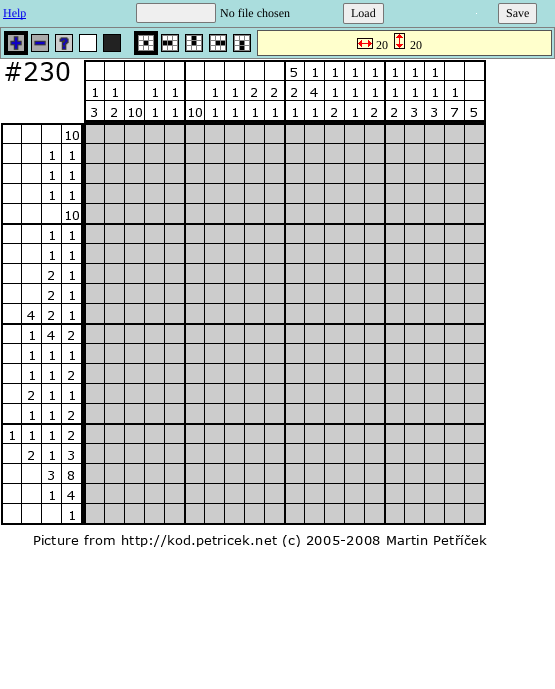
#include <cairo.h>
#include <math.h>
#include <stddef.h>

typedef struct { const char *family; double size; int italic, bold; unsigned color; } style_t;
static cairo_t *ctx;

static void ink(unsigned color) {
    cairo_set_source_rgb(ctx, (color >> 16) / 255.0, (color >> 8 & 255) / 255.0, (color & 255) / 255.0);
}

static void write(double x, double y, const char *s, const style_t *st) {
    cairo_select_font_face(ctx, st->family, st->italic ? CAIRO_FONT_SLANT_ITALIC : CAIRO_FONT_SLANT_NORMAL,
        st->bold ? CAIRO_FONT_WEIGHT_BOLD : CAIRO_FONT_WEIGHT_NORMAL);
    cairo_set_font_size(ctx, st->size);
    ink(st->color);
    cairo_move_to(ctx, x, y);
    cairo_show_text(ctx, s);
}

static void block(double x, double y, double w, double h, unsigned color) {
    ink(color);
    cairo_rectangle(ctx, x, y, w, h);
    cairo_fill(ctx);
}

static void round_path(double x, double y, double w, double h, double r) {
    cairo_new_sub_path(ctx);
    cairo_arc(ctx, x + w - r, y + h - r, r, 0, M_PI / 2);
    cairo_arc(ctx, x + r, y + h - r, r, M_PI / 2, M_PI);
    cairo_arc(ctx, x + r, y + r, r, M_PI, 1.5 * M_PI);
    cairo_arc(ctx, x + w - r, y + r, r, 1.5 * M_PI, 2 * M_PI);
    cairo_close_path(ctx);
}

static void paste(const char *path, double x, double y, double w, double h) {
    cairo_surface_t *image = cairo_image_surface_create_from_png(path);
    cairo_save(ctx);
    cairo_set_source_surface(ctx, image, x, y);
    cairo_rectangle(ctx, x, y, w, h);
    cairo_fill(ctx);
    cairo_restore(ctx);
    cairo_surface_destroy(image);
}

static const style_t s1 = {"Liberation Serif", 12, 0, 0, 0x0000ee};
static const style_t s2 = {"Liberation Serif", 12, 0, 0, 0x000000};

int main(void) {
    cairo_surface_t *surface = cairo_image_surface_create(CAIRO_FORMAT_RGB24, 555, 689);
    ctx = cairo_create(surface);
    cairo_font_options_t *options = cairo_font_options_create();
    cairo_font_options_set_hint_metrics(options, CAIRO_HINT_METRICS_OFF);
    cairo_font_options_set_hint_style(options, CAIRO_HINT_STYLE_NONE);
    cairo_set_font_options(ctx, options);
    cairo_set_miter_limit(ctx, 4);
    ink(0xffffff);
    cairo_paint(ctx);
    block(0, 0, 555, 27, 0xaadddd);
    block(3, 18, 23, 1, 0x0000ee);
    write(3, 17, "Help", &s1);
    ink(0xefefef);
    round_path(136.5, 3.5, 79, 19, 1.5);
    cairo_fill_preserve(ctx);
    ink(0x767676);
    cairo_set_line_width(ctx, 1);
    cairo_stroke(ctx);
    write(220, 17, "No file chosen", &s2);
    ink(0xefefef);
    round_path(343.5, 3.5, 40, 20, 1.5);
    cairo_fill_preserve(ctx);
    ink(0x767676);
    cairo_stroke(ctx);
    write(351, 17, "Load", &s2);
    block(476, 13, 1, 1, 0xffffff);
    ink(0xefefef);
    round_path(498.5, 3.5, 38, 20, 1.5);
    cairo_fill_preserve(ctx);
    ink(0x767676);
    cairo_stroke(ctx);
    write(506, 17, "Save", &s2);
    ink(0xaadddd);
    cairo_rectangle(ctx, 0.5, 27.5, 554, 31);
    cairo_fill_preserve(ctx);
    ink(0x808080);
    cairo_stroke(ctx);
    block(4, 31, 24, 24, 0x000000);
    block(8, 35, 16, 16, 0xaaaaaa);
    paste("pic1.png", 10, 36, 12, 14);
    cairo_rectangle(ctx, 31.5, 34.5, 17, 17);
    cairo_fill_preserve(ctx);
    ink(0x000000);
    cairo_stroke(ctx);
    paste("pic2.png", 34, 40, 12, 6);
    ink(0xcccccc);
    cairo_rectangle(ctx, 55.5, 34.5, 17, 17);
    cairo_fill_preserve(ctx);
    ink(0x000000);
    cairo_stroke(ctx);
    paste("pic3.png", 59, 37, 10, 13);
    ink(0xffffff);
    cairo_rectangle(ctx, 79.5, 34.5, 17, 17);
    cairo_fill_preserve(ctx);
    ink(0x000000);
    cairo_stroke(ctx);
    ink(0x222222);
    cairo_rectangle(ctx, 103.5, 34.5, 17, 17);
    cairo_fill_preserve(ctx);
    ink(0x000000);
    cairo_stroke(ctx);
    block(134, 31, 24, 24, 0x000000);
    paste("pic4.png", 138, 35, 16, 16);
    cairo_rectangle(ctx, 161.5, 34.5, 17, 17);
    cairo_stroke(ctx);
    paste("pic5.png", 162, 35, 16, 16);
    cairo_rectangle(ctx, 185.5, 34.5, 17, 17);
    cairo_stroke(ctx);
    paste("pic6.png", 186, 35, 16, 16);
    cairo_rectangle(ctx, 209.5, 34.5, 17, 17);
    cairo_stroke(ctx);
    paste("pic7.png", 210, 35, 16, 16);
    cairo_rectangle(ctx, 233.5, 34.5, 17, 17);
    cairo_stroke(ctx);
    paste("pic8.png", 234, 35, 16, 16);
    ink(0xffffcc);
    cairo_rectangle(ctx, 257.5, 30.5, 294, 25);
    cairo_fill_preserve(ctx);
    ink(0x555555);
    cairo_stroke(ctx);
    paste("pic9.png", 357, 38, 16, 11);
    write(376, 49, "20", &s2);
    paste("pic10.png", 394, 33, 11, 16);
    write(410, 49, "20", &s2);
    paste("pic11.png", 1, 60, 486, 487);
    block(86, 125, 18, 18, 0xcccccc);
    block(105, 125, 19, 18, 0xcccccc);
    block(125, 125, 19, 18, 0xcccccc);
    block(145, 125, 19, 18, 0xcccccc);
    block(165, 125, 19, 18, 0xcccccc);
    block(186, 125, 18, 18, 0xcccccc);
    block(205, 125, 19, 18, 0xcccccc);
    block(225, 125, 19, 18, 0xcccccc);
    block(245, 125, 19, 18, 0xcccccc);
    block(265, 125, 19, 18, 0xcccccc);
    block(286, 125, 18, 18, 0xcccccc);
    block(305, 125, 19, 18, 0xcccccc);
    block(325, 125, 19, 18, 0xcccccc);
    block(345, 125, 19, 18, 0xcccccc);
    block(365, 125, 19, 18, 0xcccccc);
    block(386, 125, 18, 18, 0xcccccc);
    block(405, 125, 19, 18, 0xcccccc);
    block(425, 125, 19, 18, 0xcccccc);
    block(445, 125, 19, 18, 0xcccccc);
    block(465, 125, 19, 18, 0xcccccc);
    block(86, 144, 18, 19, 0xcccccc);
    block(105, 144, 19, 19, 0xcccccc);
    block(125, 144, 19, 19, 0xcccccc);
    block(145, 144, 19, 19, 0xcccccc);
    block(165, 144, 19, 19, 0xcccccc);
    block(186, 144, 18, 19, 0xcccccc);
    block(205, 144, 19, 19, 0xcccccc);
    block(225, 144, 19, 19, 0xcccccc);
    block(245, 144, 19, 19, 0xcccccc);
    block(265, 144, 19, 19, 0xcccccc);
    block(286, 144, 18, 19, 0xcccccc);
    block(305, 144, 19, 19, 0xcccccc);
    block(325, 144, 19, 19, 0xcccccc);
    block(345, 144, 19, 19, 0xcccccc);
    block(365, 144, 19, 19, 0xcccccc);
    block(386, 144, 18, 19, 0xcccccc);
    block(405, 144, 19, 19, 0xcccccc);
    block(425, 144, 19, 19, 0xcccccc);
    block(445, 144, 19, 19, 0xcccccc);
    block(465, 144, 19, 19, 0xcccccc);
    block(86, 164, 18, 19, 0xcccccc);
    block(105, 164, 19, 19, 0xcccccc);
    block(125, 164, 19, 19, 0xcccccc);
    block(145, 164, 19, 19, 0xcccccc);
    block(165, 164, 19, 19, 0xcccccc);
    block(186, 164, 18, 19, 0xcccccc);
    block(205, 164, 19, 19, 0xcccccc);
    block(225, 164, 19, 19, 0xcccccc);
    block(245, 164, 19, 19, 0xcccccc);
    block(265, 164, 19, 19, 0xcccccc);
    block(286, 164, 18, 19, 0xcccccc);
    block(305, 164, 19, 19, 0xcccccc);
    block(325, 164, 19, 19, 0xcccccc);
    block(345, 164, 19, 19, 0xcccccc);
    block(365, 164, 19, 19, 0xcccccc);
    block(386, 164, 18, 19, 0xcccccc);
    block(405, 164, 19, 19, 0xcccccc);
    block(425, 164, 19, 19, 0xcccccc);
    block(445, 164, 19, 19, 0xcccccc);
    block(465, 164, 19, 19, 0xcccccc);
    block(86, 184, 18, 19, 0xcccccc);
    block(105, 184, 19, 19, 0xcccccc);
    block(125, 184, 19, 19, 0xcccccc);
    block(145, 184, 19, 19, 0xcccccc);
    block(165, 184, 19, 19, 0xcccccc);
    block(186, 184, 18, 19, 0xcccccc);
    block(205, 184, 19, 19, 0xcccccc);
    block(225, 184, 19, 19, 0xcccccc);
    block(245, 184, 19, 19, 0xcccccc);
    block(265, 184, 19, 19, 0xcccccc);
    block(286, 184, 18, 19, 0xcccccc);
    block(305, 184, 19, 19, 0xcccccc);
    block(325, 184, 19, 19, 0xcccccc);
    block(345, 184, 19, 19, 0xcccccc);
    block(365, 184, 19, 19, 0xcccccc);
    block(386, 184, 18, 19, 0xcccccc);
    block(405, 184, 19, 19, 0xcccccc);
    block(425, 184, 19, 19, 0xcccccc);
    block(445, 184, 19, 19, 0xcccccc);
    block(465, 184, 19, 19, 0xcccccc);
    block(86, 204, 18, 19, 0xcccccc);
    block(105, 204, 19, 19, 0xcccccc);
    block(125, 204, 19, 19, 0xcccccc);
    block(145, 204, 19, 19, 0xcccccc);
    block(165, 204, 19, 19, 0xcccccc);
    block(186, 204, 18, 19, 0xcccccc);
    block(205, 204, 19, 19, 0xcccccc);
    block(225, 204, 19, 19, 0xcccccc);
    block(245, 204, 19, 19, 0xcccccc);
    block(265, 204, 19, 19, 0xcccccc);
    block(286, 204, 18, 19, 0xcccccc);
    block(305, 204, 19, 19, 0xcccccc);
    block(325, 204, 19, 19, 0xcccccc);
    block(345, 204, 19, 19, 0xcccccc);
    block(365, 204, 19, 19, 0xcccccc);
    block(386, 204, 18, 19, 0xcccccc);
    block(405, 204, 19, 19, 0xcccccc);
    block(425, 204, 19, 19, 0xcccccc);
    block(445, 204, 19, 19, 0xcccccc);
    block(465, 204, 19, 19, 0xcccccc);
    block(86, 225, 18, 18, 0xcccccc);
    block(105, 225, 19, 18, 0xcccccc);
    block(125, 225, 19, 18, 0xcccccc);
    block(145, 225, 19, 18, 0xcccccc);
    block(165, 225, 19, 18, 0xcccccc);
    block(186, 225, 18, 18, 0xcccccc);
    block(205, 225, 19, 18, 0xcccccc);
    block(225, 225, 19, 18, 0xcccccc);
    block(245, 225, 19, 18, 0xcccccc);
    block(265, 225, 19, 18, 0xcccccc);
    block(286, 225, 18, 18, 0xcccccc);
    block(305, 225, 19, 18, 0xcccccc);
    block(325, 225, 19, 18, 0xcccccc);
    block(345, 225, 19, 18, 0xcccccc);
    block(365, 225, 19, 18, 0xcccccc);
    block(386, 225, 18, 18, 0xcccccc);
    block(405, 225, 19, 18, 0xcccccc);
    block(425, 225, 19, 18, 0xcccccc);
    block(445, 225, 19, 18, 0xcccccc);
    block(465, 225, 19, 18, 0xcccccc);
    block(86, 244, 18, 19, 0xcccccc);
    block(105, 244, 19, 19, 0xcccccc);
    block(125, 244, 19, 19, 0xcccccc);
    block(145, 244, 19, 19, 0xcccccc);
    block(165, 244, 19, 19, 0xcccccc);
    block(186, 244, 18, 19, 0xcccccc);
    block(205, 244, 19, 19, 0xcccccc);
    block(225, 244, 19, 19, 0xcccccc);
    block(245, 244, 19, 19, 0xcccccc);
    block(265, 244, 19, 19, 0xcccccc);
    block(286, 244, 18, 19, 0xcccccc);
    block(305, 244, 19, 19, 0xcccccc);
    block(325, 244, 19, 19, 0xcccccc);
    block(345, 244, 19, 19, 0xcccccc);
    block(365, 244, 19, 19, 0xcccccc);
    block(386, 244, 18, 19, 0xcccccc);
    block(405, 244, 19, 19, 0xcccccc);
    block(425, 244, 19, 19, 0xcccccc);
    block(445, 244, 19, 19, 0xcccccc);
    block(465, 244, 19, 19, 0xcccccc);
    block(86, 264, 18, 19, 0xcccccc);
    block(105, 264, 19, 19, 0xcccccc);
    block(125, 264, 19, 19, 0xcccccc);
    block(145, 264, 19, 19, 0xcccccc);
    block(165, 264, 19, 19, 0xcccccc);
    block(186, 264, 18, 19, 0xcccccc);
    block(205, 264, 19, 19, 0xcccccc);
    block(225, 264, 19, 19, 0xcccccc);
    block(245, 264, 19, 19, 0xcccccc);
    block(265, 264, 19, 19, 0xcccccc);
    block(286, 264, 18, 19, 0xcccccc);
    block(305, 264, 19, 19, 0xcccccc);
    block(325, 264, 19, 19, 0xcccccc);
    block(345, 264, 19, 19, 0xcccccc);
    block(365, 264, 19, 19, 0xcccccc);
    block(386, 264, 18, 19, 0xcccccc);
    block(405, 264, 19, 19, 0xcccccc);
    block(425, 264, 19, 19, 0xcccccc);
    block(445, 264, 19, 19, 0xcccccc);
    block(465, 264, 19, 19, 0xcccccc);
    block(86, 284, 18, 19, 0xcccccc);
    block(105, 284, 19, 19, 0xcccccc);
    block(125, 284, 19, 19, 0xcccccc);
    block(145, 284, 19, 19, 0xcccccc);
    block(165, 284, 19, 19, 0xcccccc);
    block(186, 284, 18, 19, 0xcccccc);
    block(205, 284, 19, 19, 0xcccccc);
    block(225, 284, 19, 19, 0xcccccc);
    block(245, 284, 19, 19, 0xcccccc);
    block(265, 284, 19, 19, 0xcccccc);
    block(286, 284, 18, 19, 0xcccccc);
    block(305, 284, 19, 19, 0xcccccc);
    block(325, 284, 19, 19, 0xcccccc);
    block(345, 284, 19, 19, 0xcccccc);
    block(365, 284, 19, 19, 0xcccccc);
    block(386, 284, 18, 19, 0xcccccc);
    block(405, 284, 19, 19, 0xcccccc);
    block(425, 284, 19, 19, 0xcccccc);
    block(445, 284, 19, 19, 0xcccccc);
    block(465, 284, 19, 19, 0xcccccc);
    block(86, 304, 18, 19, 0xcccccc);
    block(105, 304, 19, 19, 0xcccccc);
    block(125, 304, 19, 19, 0xcccccc);
    block(145, 304, 19, 19, 0xcccccc);
    block(165, 304, 19, 19, 0xcccccc);
    block(186, 304, 18, 19, 0xcccccc);
    block(205, 304, 19, 19, 0xcccccc);
    block(225, 304, 19, 19, 0xcccccc);
    block(245, 304, 19, 19, 0xcccccc);
    block(265, 304, 19, 19, 0xcccccc);
    block(286, 304, 18, 19, 0xcccccc);
    block(305, 304, 19, 19, 0xcccccc);
    block(325, 304, 19, 19, 0xcccccc);
    block(345, 304, 19, 19, 0xcccccc);
    block(365, 304, 19, 19, 0xcccccc);
    block(386, 304, 18, 19, 0xcccccc);
    block(405, 304, 19, 19, 0xcccccc);
    block(425, 304, 19, 19, 0xcccccc);
    block(445, 304, 19, 19, 0xcccccc);
    block(465, 304, 19, 19, 0xcccccc);
    block(86, 325, 18, 18, 0xcccccc);
    block(105, 325, 19, 18, 0xcccccc);
    block(125, 325, 19, 18, 0xcccccc);
    block(145, 325, 19, 18, 0xcccccc);
    block(165, 325, 19, 18, 0xcccccc);
    block(186, 325, 18, 18, 0xcccccc);
    block(205, 325, 19, 18, 0xcccccc);
    block(225, 325, 19, 18, 0xcccccc);
    block(245, 325, 19, 18, 0xcccccc);
    block(265, 325, 19, 18, 0xcccccc);
    block(286, 325, 18, 18, 0xcccccc);
    block(305, 325, 19, 18, 0xcccccc);
    block(325, 325, 19, 18, 0xcccccc);
    block(345, 325, 19, 18, 0xcccccc);
    block(365, 325, 19, 18, 0xcccccc);
    block(386, 325, 18, 18, 0xcccccc);
    block(405, 325, 19, 18, 0xcccccc);
    block(425, 325, 19, 18, 0xcccccc);
    block(445, 325, 19, 18, 0xcccccc);
    block(465, 325, 19, 18, 0xcccccc);
    block(86, 344, 18, 19, 0xcccccc);
    block(105, 344, 19, 19, 0xcccccc);
    block(125, 344, 19, 19, 0xcccccc);
    block(145, 344, 19, 19, 0xcccccc);
    block(165, 344, 19, 19, 0xcccccc);
    block(186, 344, 18, 19, 0xcccccc);
    block(205, 344, 19, 19, 0xcccccc);
    block(225, 344, 19, 19, 0xcccccc);
    block(245, 344, 19, 19, 0xcccccc);
    block(265, 344, 19, 19, 0xcccccc);
    block(286, 344, 18, 19, 0xcccccc);
    block(305, 344, 19, 19, 0xcccccc);
    block(325, 344, 19, 19, 0xcccccc);
    block(345, 344, 19, 19, 0xcccccc);
    block(365, 344, 19, 19, 0xcccccc);
    block(386, 344, 18, 19, 0xcccccc);
    block(405, 344, 19, 19, 0xcccccc);
    block(425, 344, 19, 19, 0xcccccc);
    block(445, 344, 19, 19, 0xcccccc);
    block(465, 344, 19, 19, 0xcccccc);
    block(86, 364, 18, 19, 0xcccccc);
    block(105, 364, 19, 19, 0xcccccc);
    block(125, 364, 19, 19, 0xcccccc);
    block(145, 364, 19, 19, 0xcccccc);
    block(165, 364, 19, 19, 0xcccccc);
    block(186, 364, 18, 19, 0xcccccc);
    block(205, 364, 19, 19, 0xcccccc);
    block(225, 364, 19, 19, 0xcccccc);
    block(245, 364, 19, 19, 0xcccccc);
    block(265, 364, 19, 19, 0xcccccc);
    block(286, 364, 18, 19, 0xcccccc);
    block(305, 364, 19, 19, 0xcccccc);
    block(325, 364, 19, 19, 0xcccccc);
    block(345, 364, 19, 19, 0xcccccc);
    block(365, 364, 19, 19, 0xcccccc);
    block(386, 364, 18, 19, 0xcccccc);
    block(405, 364, 19, 19, 0xcccccc);
    block(425, 364, 19, 19, 0xcccccc);
    block(445, 364, 19, 19, 0xcccccc);
    block(465, 364, 19, 19, 0xcccccc);
    block(86, 384, 18, 19, 0xcccccc);
    block(105, 384, 19, 19, 0xcccccc);
    block(125, 384, 19, 19, 0xcccccc);
    block(145, 384, 19, 19, 0xcccccc);
    block(165, 384, 19, 19, 0xcccccc);
    block(186, 384, 18, 19, 0xcccccc);
    block(205, 384, 19, 19, 0xcccccc);
    block(225, 384, 19, 19, 0xcccccc);
    block(245, 384, 19, 19, 0xcccccc);
    block(265, 384, 19, 19, 0xcccccc);
    block(286, 384, 18, 19, 0xcccccc);
    block(305, 384, 19, 19, 0xcccccc);
    block(325, 384, 19, 19, 0xcccccc);
    block(345, 384, 19, 19, 0xcccccc);
    block(365, 384, 19, 19, 0xcccccc);
    block(386, 384, 18, 19, 0xcccccc);
    block(405, 384, 19, 19, 0xcccccc);
    block(425, 384, 19, 19, 0xcccccc);
    block(445, 384, 19, 19, 0xcccccc);
    block(465, 384, 19, 19, 0xcccccc);
    block(86, 404, 18, 19, 0xcccccc);
    block(105, 404, 19, 19, 0xcccccc);
    block(125, 404, 19, 19, 0xcccccc);
    block(145, 404, 19, 19, 0xcccccc);
    block(165, 404, 19, 19, 0xcccccc);
    block(186, 404, 18, 19, 0xcccccc);
    block(205, 404, 19, 19, 0xcccccc);
    block(225, 404, 19, 19, 0xcccccc);
    block(245, 404, 19, 19, 0xcccccc);
    block(265, 404, 19, 19, 0xcccccc);
    block(286, 404, 18, 19, 0xcccccc);
    block(305, 404, 19, 19, 0xcccccc);
    block(325, 404, 19, 19, 0xcccccc);
    block(345, 404, 19, 19, 0xcccccc);
    block(365, 404, 19, 19, 0xcccccc);
    block(386, 404, 18, 19, 0xcccccc);
    block(405, 404, 19, 19, 0xcccccc);
    block(425, 404, 19, 19, 0xcccccc);
    block(445, 404, 19, 19, 0xcccccc);
    block(465, 404, 19, 19, 0xcccccc);
    block(86, 425, 18, 18, 0xcccccc);
    block(105, 425, 19, 18, 0xcccccc);
    block(125, 425, 19, 18, 0xcccccc);
    block(145, 425, 19, 18, 0xcccccc);
    block(165, 425, 19, 18, 0xcccccc);
    block(186, 425, 18, 18, 0xcccccc);
    block(205, 425, 19, 18, 0xcccccc);
    block(225, 425, 19, 18, 0xcccccc);
    block(245, 425, 19, 18, 0xcccccc);
    block(265, 425, 19, 18, 0xcccccc);
    block(286, 425, 18, 18, 0xcccccc);
    block(305, 425, 19, 18, 0xcccccc);
    block(325, 425, 19, 18, 0xcccccc);
    block(345, 425, 19, 18, 0xcccccc);
    block(365, 425, 19, 18, 0xcccccc);
    block(386, 425, 18, 18, 0xcccccc);
    block(405, 425, 19, 18, 0xcccccc);
    block(425, 425, 19, 18, 0xcccccc);
    block(445, 425, 19, 18, 0xcccccc);
    block(465, 425, 19, 18, 0xcccccc);
    block(86, 444, 18, 19, 0xcccccc);
    block(105, 444, 19, 19, 0xcccccc);
    block(125, 444, 19, 19, 0xcccccc);
    block(145, 444, 19, 19, 0xcccccc);
    block(165, 444, 19, 19, 0xcccccc);
    block(186, 444, 18, 19, 0xcccccc);
    block(205, 444, 19, 19, 0xcccccc);
    block(225, 444, 19, 19, 0xcccccc);
    block(245, 444, 19, 19, 0xcccccc);
    block(265, 444, 19, 19, 0xcccccc);
    block(286, 444, 18, 19, 0xcccccc);
    block(305, 444, 19, 19, 0xcccccc);
    block(325, 444, 19, 19, 0xcccccc);
    block(345, 444, 19, 19, 0xcccccc);
    block(365, 444, 19, 19, 0xcccccc);
    block(386, 444, 18, 19, 0xcccccc);
    block(405, 444, 19, 19, 0xcccccc);
    block(425, 444, 19, 19, 0xcccccc);
    block(445, 444, 19, 19, 0xcccccc);
    block(465, 444, 19, 19, 0xcccccc);
    block(86, 464, 18, 19, 0xcccccc);
    block(105, 464, 19, 19, 0xcccccc);
    block(125, 464, 19, 19, 0xcccccc);
    block(145, 464, 19, 19, 0xcccccc);
    block(165, 464, 19, 19, 0xcccccc);
    block(186, 464, 18, 19, 0xcccccc);
    block(205, 464, 19, 19, 0xcccccc);
    block(225, 464, 19, 19, 0xcccccc);
    block(245, 464, 19, 19, 0xcccccc);
    block(265, 464, 19, 19, 0xcccccc);
    block(286, 464, 18, 19, 0xcccccc);
    block(305, 464, 19, 19, 0xcccccc);
    block(325, 464, 19, 19, 0xcccccc);
    block(345, 464, 19, 19, 0xcccccc);
    block(365, 464, 19, 19, 0xcccccc);
    block(386, 464, 18, 19, 0xcccccc);
    block(405, 464, 19, 19, 0xcccccc);
    block(425, 464, 19, 19, 0xcccccc);
    block(445, 464, 19, 19, 0xcccccc);
    block(465, 464, 19, 19, 0xcccccc);
    block(86, 484, 18, 19, 0xcccccc);
    block(105, 484, 19, 19, 0xcccccc);
    block(125, 484, 19, 19, 0xcccccc);
    block(145, 484, 19, 19, 0xcccccc);
    block(165, 484, 19, 19, 0xcccccc);
    block(186, 484, 18, 19, 0xcccccc);
    block(205, 484, 19, 19, 0xcccccc);
    block(225, 484, 19, 19, 0xcccccc);
    block(245, 484, 19, 19, 0xcccccc);
    block(265, 484, 19, 19, 0xcccccc);
    block(286, 484, 18, 19, 0xcccccc);
    block(305, 484, 19, 19, 0xcccccc);
    block(325, 484, 19, 19, 0xcccccc);
    block(345, 484, 19, 19, 0xcccccc);
    block(365, 484, 19, 19, 0xcccccc);
    block(386, 484, 18, 19, 0xcccccc);
    block(405, 484, 19, 19, 0xcccccc);
    block(425, 484, 19, 19, 0xcccccc);
    block(445, 484, 19, 19, 0xcccccc);
    block(465, 484, 19, 19, 0xcccccc);
    block(86, 504, 18, 19, 0xcccccc);
    block(105, 504, 19, 19, 0xcccccc);
    block(125, 504, 19, 19, 0xcccccc);
    block(145, 504, 19, 19, 0xcccccc);
    block(165, 504, 19, 19, 0xcccccc);
    block(186, 504, 18, 19, 0xcccccc);
    block(205, 504, 19, 19, 0xcccccc);
    block(225, 504, 19, 19, 0xcccccc);
    block(245, 504, 19, 19, 0xcccccc);
    block(265, 504, 19, 19, 0xcccccc);
    block(286, 504, 18, 19, 0xcccccc);
    block(305, 504, 19, 19, 0xcccccc);
    block(325, 504, 19, 19, 0xcccccc);
    block(345, 504, 19, 19, 0xcccccc);
    block(365, 504, 19, 19, 0xcccccc);
    block(386, 504, 18, 19, 0xcccccc);
    block(405, 504, 19, 19, 0xcccccc);
    block(425, 504, 19, 19, 0xcccccc);
    block(445, 504, 19, 19, 0xcccccc);
    block(465, 504, 19, 19, 0xcccccc);
    cairo_surface_write_to_png(surface, "screenshot.png");
    cairo_font_options_destroy(options);
    cairo_destroy(ctx);
    cairo_surface_destroy(surface);
    return 0;
}
